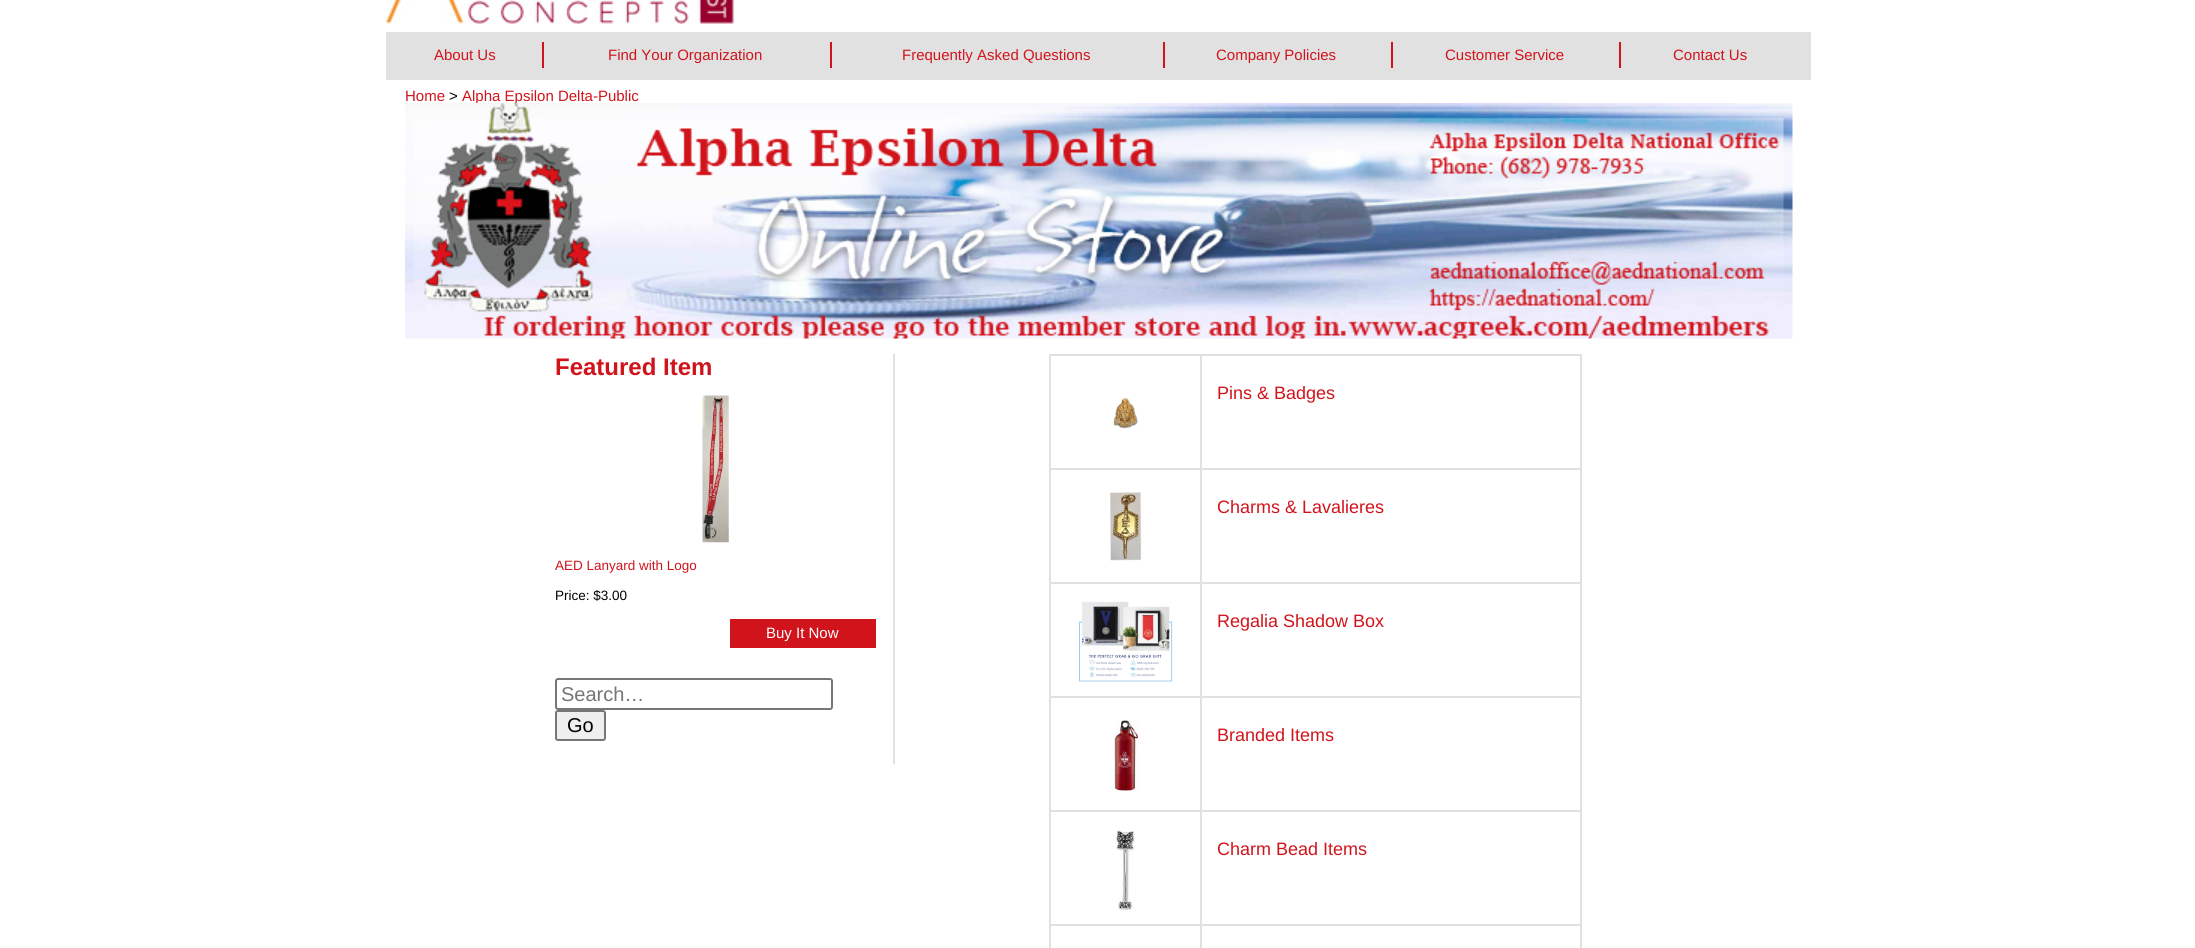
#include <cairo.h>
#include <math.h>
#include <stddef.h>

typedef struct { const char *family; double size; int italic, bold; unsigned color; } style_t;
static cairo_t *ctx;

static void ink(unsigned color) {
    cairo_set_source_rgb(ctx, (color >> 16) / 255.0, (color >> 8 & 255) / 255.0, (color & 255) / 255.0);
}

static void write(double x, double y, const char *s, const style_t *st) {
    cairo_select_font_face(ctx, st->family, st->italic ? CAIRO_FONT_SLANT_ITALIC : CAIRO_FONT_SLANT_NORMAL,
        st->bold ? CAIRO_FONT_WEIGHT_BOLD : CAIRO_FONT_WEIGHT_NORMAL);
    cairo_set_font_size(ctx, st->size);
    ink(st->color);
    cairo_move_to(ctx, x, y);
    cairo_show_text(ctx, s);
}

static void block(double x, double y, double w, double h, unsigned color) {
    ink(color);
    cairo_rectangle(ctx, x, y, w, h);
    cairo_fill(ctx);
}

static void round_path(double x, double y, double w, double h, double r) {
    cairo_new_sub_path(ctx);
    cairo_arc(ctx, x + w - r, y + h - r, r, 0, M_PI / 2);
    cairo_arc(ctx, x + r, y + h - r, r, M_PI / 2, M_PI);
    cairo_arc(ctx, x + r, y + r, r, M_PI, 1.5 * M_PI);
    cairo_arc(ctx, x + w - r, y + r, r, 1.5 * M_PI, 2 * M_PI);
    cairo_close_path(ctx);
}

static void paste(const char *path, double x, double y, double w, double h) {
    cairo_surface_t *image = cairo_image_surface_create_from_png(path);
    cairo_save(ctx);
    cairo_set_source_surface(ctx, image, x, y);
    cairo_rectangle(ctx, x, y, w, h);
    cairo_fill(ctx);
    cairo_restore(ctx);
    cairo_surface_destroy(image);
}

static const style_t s1 = {"Liberation Sans", 15, 0, 0, 0xd1141b};
static const style_t s2 = {"Liberation Sans", 15, 0, 0, 0x000000};
static const style_t s3 = {"Liberation Sans", 24, 0, 1, 0xd1141b};
static const style_t s4 = {"Liberation Sans", 13.5, 0, 0, 0xd1141b};
static const style_t s5 = {"Liberation Sans", 13.5, 0, 0, 0x000000};
static const style_t s6 = {"Liberation Sans", 15, 0, 0, 0xffffff};
static const style_t s7 = {"Liberation Sans", 20, 0, 0, 0x757575};
static const style_t s8 = {"Liberation Sans", 20, 0, 0, 0x000000};
static const style_t s9 = {"Liberation Sans", 18, 0, 0, 0xd1141b};

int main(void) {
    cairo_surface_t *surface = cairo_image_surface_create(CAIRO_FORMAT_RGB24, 2195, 948);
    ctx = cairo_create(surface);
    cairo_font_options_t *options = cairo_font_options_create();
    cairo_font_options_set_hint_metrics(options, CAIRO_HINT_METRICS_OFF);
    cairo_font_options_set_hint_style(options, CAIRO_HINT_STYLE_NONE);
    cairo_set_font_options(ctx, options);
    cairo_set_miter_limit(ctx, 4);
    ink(0xffffff);
    cairo_paint(ctx);
    paste("pic1.png", 385, 0, 349, 24);
    block(386, 32, 1425, 48, 0xe1e1e1);
    block(542, 42, 2, 26, 0xd1141b);
    write(434, 60, "About Us", &s1);
    block(830, 42, 2, 26, 0xd1141b);
    write(608, 60, "Find Your Organization", &s1);
    block(1163, 42, 2, 26, 0xd1141b);
    write(902, 60, "Frequently Asked Questions", &s1);
    block(1391, 42, 2, 26, 0xd1141b);
    write(1216, 60, "Company Policies", &s1);
    block(1619, 42, 2, 26, 0xd1141b);
    write(1445, 60, "Customer Service", &s1);
    write(1673, 60, "Contact Us", &s1);
    write(405, 101, "Home", &s1);
    write(449, 101, ">", &s2);
    write(462, 101, "Alpha Epsilon Delta-Public", &s1);
    paste("pic2.png", 405, 103, 1388, 236);
    block(893, 354, 2, 410, 0xe1e1e1);
    write(555, 375, "Featured Item", &s3);
    paste("pic3.png", 702, 395, 27, 148);
    write(555, 570, "AED Lanyard with Logo", &s4);
    write(555, 600, "Price: $3.00", &s5);
    block(730, 619, 146, 29, 0xd1141b);
    write(766, 638, "Buy It Now", &s6);
    round_path(556, 679, 276, 30, 2);
    ink(0x767676);
    cairo_stroke(ctx);
    write(561, 701, "Search…", &s7);
    ink(0xefefef);
    round_path(556, 711, 49, 29, 2);
    cairo_fill_preserve(ctx);
    ink(0x767676);
    cairo_stroke(ctx);
    write(567, 732, "Go", &s8);
    block(1580, 354, 2, 594, 0xe1e1e1);
    block(1049, 354, 2, 594, 0xe1e1e1);
    block(1050, 354, 530, 2, 0xe1e1e1);
    block(1200, 356, 2, 112, 0xe1e1e1);
    paste("pic4.png", 1113, 398, 25, 31);
    write(1217, 399, "Pins & Badges", &s9);
    block(1050, 468, 530, 2, 0xe1e1e1);
    block(1200, 470, 2, 112, 0xe1e1e1);
    paste("pic5.png", 1110, 492, 32, 69);
    write(1217, 513, "Charms & Lavalieres", &s9);
    block(1050, 582, 530, 2, 0xe1e1e1);
    block(1200, 584, 2, 112, 0xe1e1e1);
    paste("pic6.png", 1079, 601, 94, 81);
    write(1217, 627, "Regalia Shadow Box", &s9);
    block(1050, 696, 530, 2, 0xe1e1e1);
    block(1200, 698, 2, 112, 0xe1e1e1);
    paste("pic7.png", 1114, 720, 25, 71);
    write(1217, 741, "Branded Items", &s9);
    block(1050, 810, 530, 2, 0xe1e1e1);
    block(1200, 812, 2, 112, 0xe1e1e1);
    paste("pic8.png", 1116, 831, 19, 80);
    write(1217, 855, "Charm Bead Items", &s9);
    block(1050, 924, 530, 2, 0xe1e1e1);
    block(1200, 926, 2, 22, 0xe1e1e1);
    cairo_surface_write_to_png(surface, "screenshot.png");
    cairo_font_options_destroy(options);
    cairo_destroy(ctx);
    cairo_surface_destroy(surface);
    return 0;
}
